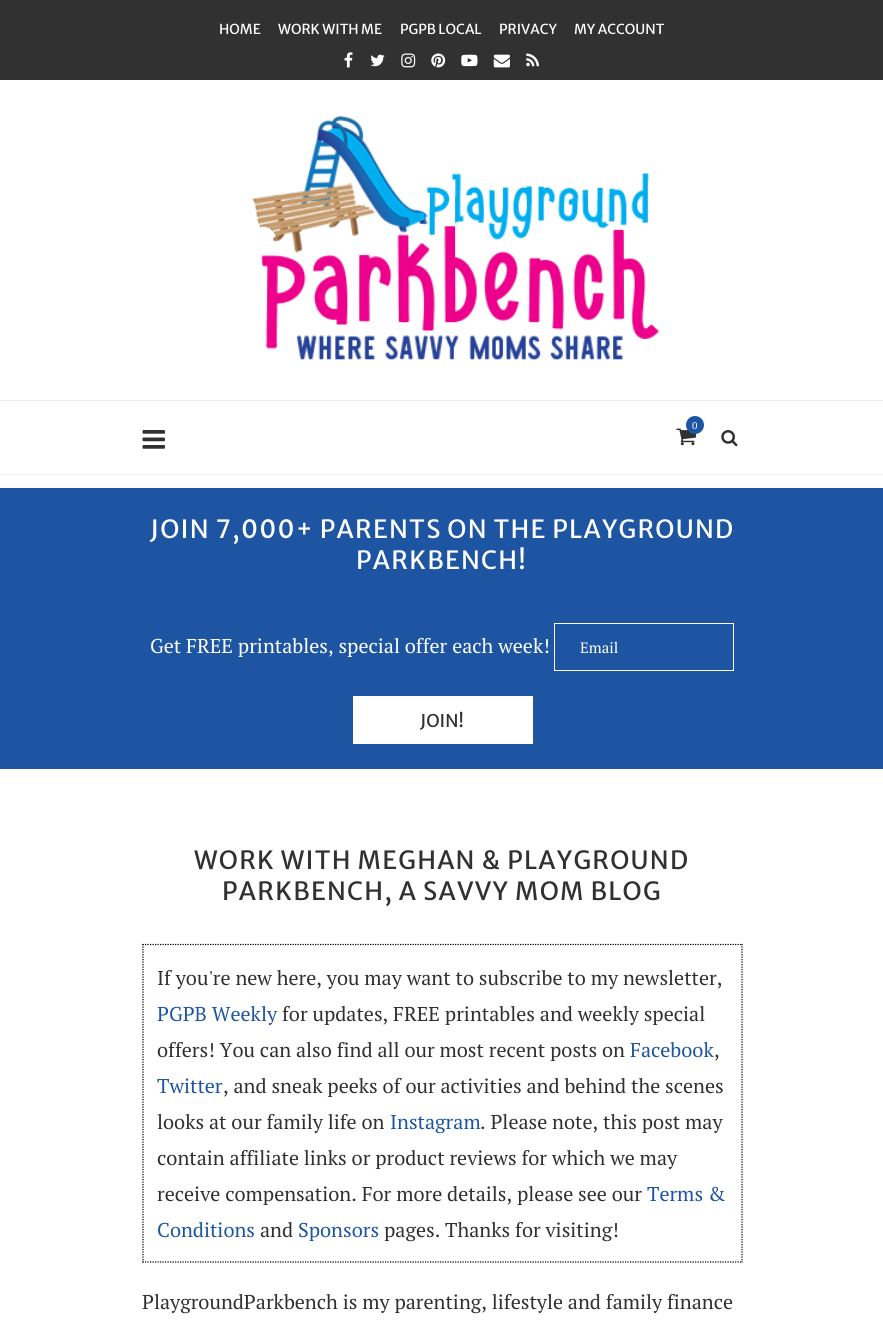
#include <cairo.h>
#include <math.h>
#include <stddef.h>

typedef struct { const char *family; double size; int italic, bold; unsigned color; } style_t;
static cairo_t *ctx;

static void ink(unsigned color) {
    cairo_set_source_rgb(ctx, (color >> 16) / 255.0, (color >> 8 & 255) / 255.0, (color & 255) / 255.0);
}

static void write(double x, double y, const char *s, const style_t *st) {
    cairo_select_font_face(ctx, st->family, st->italic ? CAIRO_FONT_SLANT_ITALIC : CAIRO_FONT_SLANT_NORMAL,
        st->bold ? CAIRO_FONT_WEIGHT_BOLD : CAIRO_FONT_WEIGHT_NORMAL);
    cairo_set_font_size(ctx, st->size);
    ink(st->color);
    cairo_move_to(ctx, x, y);
    cairo_show_text(ctx, s);
}

static void write_spaced(double x, double y, const char *s, double letter, double word) {
    cairo_move_to(ctx, x, y);
    while (*s) {
        char ch[5] = {0};
        int n = 0;
        do ch[n++] = *s++; while ((*s & 0xC0) == 0x80);
        cairo_show_text(ctx, ch);
        cairo_rel_move_to(ctx, letter + word * (*ch == ' '), 0);
    }
}

static void block(double x, double y, double w, double h, unsigned color) {
    ink(color);
    cairo_rectangle(ctx, x, y, w, h);
    cairo_fill(ctx);
}

static void paste(const char *path, double x, double y, double w, double h) {
    cairo_surface_t *image = cairo_image_surface_create_from_png(path);
    cairo_save(ctx);
    cairo_set_source_surface(ctx, image, x, y);
    cairo_rectangle(ctx, x, y, w, h);
    cairo_fill(ctx);
    cairo_restore(ctx);
    cairo_surface_destroy(image);
}

static const style_t s1 = {"Merriweather Sans", 13.75, 0, 0, 0xffffff};
static const style_t s2 = {"PT Serif", 10, 0, 0, 0xffffff};
static const style_t s3 = {"PT Serif", 20, 0, 0, 0xffffff};
static const style_t s4 = {"PT Serif", 15, 0, 0, 0xffffff};
static const style_t s5 = {"Merriweather Sans", 17.5, 0, 0, 0x313131};
static const style_t s6 = {"PT Serif", 20, 0, 0, 0x313131};
static const style_t s7 = {"PT Serif", 20, 0, 0, 0x1e55a2};

int main(void) {
    cairo_surface_t *surface = cairo_image_surface_create(CAIRO_FORMAT_RGB24, 883, 1326);
    ctx = cairo_create(surface);
    cairo_font_options_t *options = cairo_font_options_create();
    cairo_font_options_set_hint_metrics(options, CAIRO_HINT_METRICS_OFF);
    cairo_font_options_set_hint_style(options, CAIRO_HINT_STYLE_NONE);
    cairo_set_font_options(ctx, options);
    cairo_set_miter_limit(ctx, 4);
    ink(0xffffff);
    cairo_paint(ctx);
    block(0, 0, 883, 80, 0x313131);
    write(219, 34, "HOME", &s1);
    write(278, 34, "WORK WITH ME", &s1);
    write(400, 34, "PGPB LOCAL", &s1);
    write(499, 34, "PRIVACY", &s1);
    write(574, 34, "MY ACCOUNT", &s1);
    paste("pic1.png", 344, 52, 9, 16);
    paste("pic2.png", 370, 54, 15, 13);
    paste("pic3.png", 401, 53, 15, 15);
    paste("pic4.png", 431, 53, 15, 15);
    paste("pic5.png", 461, 54, 17, 13);
    paste("pic6.png", 493, 54, 17, 14);
    paste("pic7.png", 526, 53, 13, 14);
    paste("pic8.png", 252, 115, 407, 245);
    block(0, 400, 883, 1, 0xececec);
    block(0, 474, 883, 1, 0xececec);
    paste("pic9.png", 676, 428, 20, 18);
    ink(0x1e55a2);
    cairo_arc(ctx, 695, 425, 9, 0, 2 * M_PI);
    cairo_fill(ctx);
    write(692, 429, "0", &s2);
    paste("pic10.png", 142, 430, 23, 19);
    paste("pic11.png", 721, 430, 17, 17);
    block(0, 488, 883, 281, 0x1e55a2);
    cairo_select_font_face(ctx, "Merriweather Sans", CAIRO_FONT_SLANT_NORMAL, CAIRO_FONT_WEIGHT_NORMAL);
    cairo_set_font_size(ctx, 25);
    ink(0xffffff);
    write_spaced(150, 538, "JOIN 7,000+ PARENTS ON THE PLAYGROUND", 1.25, 0);
    write_spaced(356, 569, "PARKBENCH!", 1.25, 0);
    write(150, 653, "Get FREE printables, special offer each week!", &s3);
    cairo_rectangle(ctx, 554.5, 623.5, 179, 47);
    cairo_set_line_width(ctx, 1);
    cairo_stroke(ctx);
    write(580, 653, "Email", &s4);
    block(353, 696, 180, 48, 0xffffff);
    write(420, 727, "JOIN!", &s5);
    cairo_set_font_size(ctx, 25);
    write_spaced(194, 869, "WORK WITH MEGHAN & PLAYGROUND", 1.25, 0);
    write_spaced(222, 900, "PARKBENCH, A SAVVY MOM BLOG", 1.25, 0);
    cairo_new_path(ctx);
    cairo_move_to(ctx, 142.5, 944.5);
    cairo_line_to(ctx, 742.5, 944.5);
    ink(0x000000);
    cairo_set_line_width(ctx, 1.2);
    cairo_set_dash(ctx, (double[]){1.25, 1.25}, 2, 0);
    cairo_stroke(ctx);
    cairo_new_path(ctx);
    cairo_move_to(ctx, 742, 944);
    cairo_line_to(ctx, 742, 1262.5);
    cairo_stroke(ctx);
    cairo_new_path(ctx);
    cairo_move_to(ctx, 142.5, 1262);
    cairo_line_to(ctx, 742.5, 1262);
    cairo_stroke(ctx);
    cairo_new_path(ctx);
    cairo_move_to(ctx, 143, 944);
    cairo_line_to(ctx, 143, 1262.5);
    cairo_stroke(ctx);
    write(157, 985, "If you're new here, you may want to subscribe to my newsletter,", &s6);
    write(157, 1021, "PGPB Weekly", &s7);
    write(282, 1021, "for updates, FREE printables and weekly special", &s6);
    write(157, 1057, "offers! You can also find all our most recent posts on", &s6);
    write(630, 1057, "Facebook", &s7);
    write(714, 1057, ",", &s6);
    write(157, 1093, "Twitter", &s7);
    write(223, 1093, ", and sneak peeks of our activities and behind the scenes", &s6);
    write(157, 1129, "looks at our family life on", &s6);
    write(390, 1129, "Instagram", &s7);
    write(480, 1129, ". Please note, this post may", &s6);
    write(157, 1165, "contain affiliate links or product reviews for which we may", &s6);
    write(157, 1201, "receive compensation. For more details, please see our", &s6);
    write(647, 1201, "Terms &", &s7);
    write(157, 1237, "Conditions", &s7);
    write(260, 1237, "and", &s6);
    write(298, 1237, "Sponsors", &s7);
    write(384, 1237, "pages. Thanks for visiting!", &s6);
    write(142, 1309, "PlaygroundParkbench is my parenting, lifestyle and family finance", &s6);
    cairo_surface_write_to_png(surface, "screenshot.png");
    cairo_font_options_destroy(options);
    cairo_destroy(ctx);
    cairo_surface_destroy(surface);
    return 0;
}
